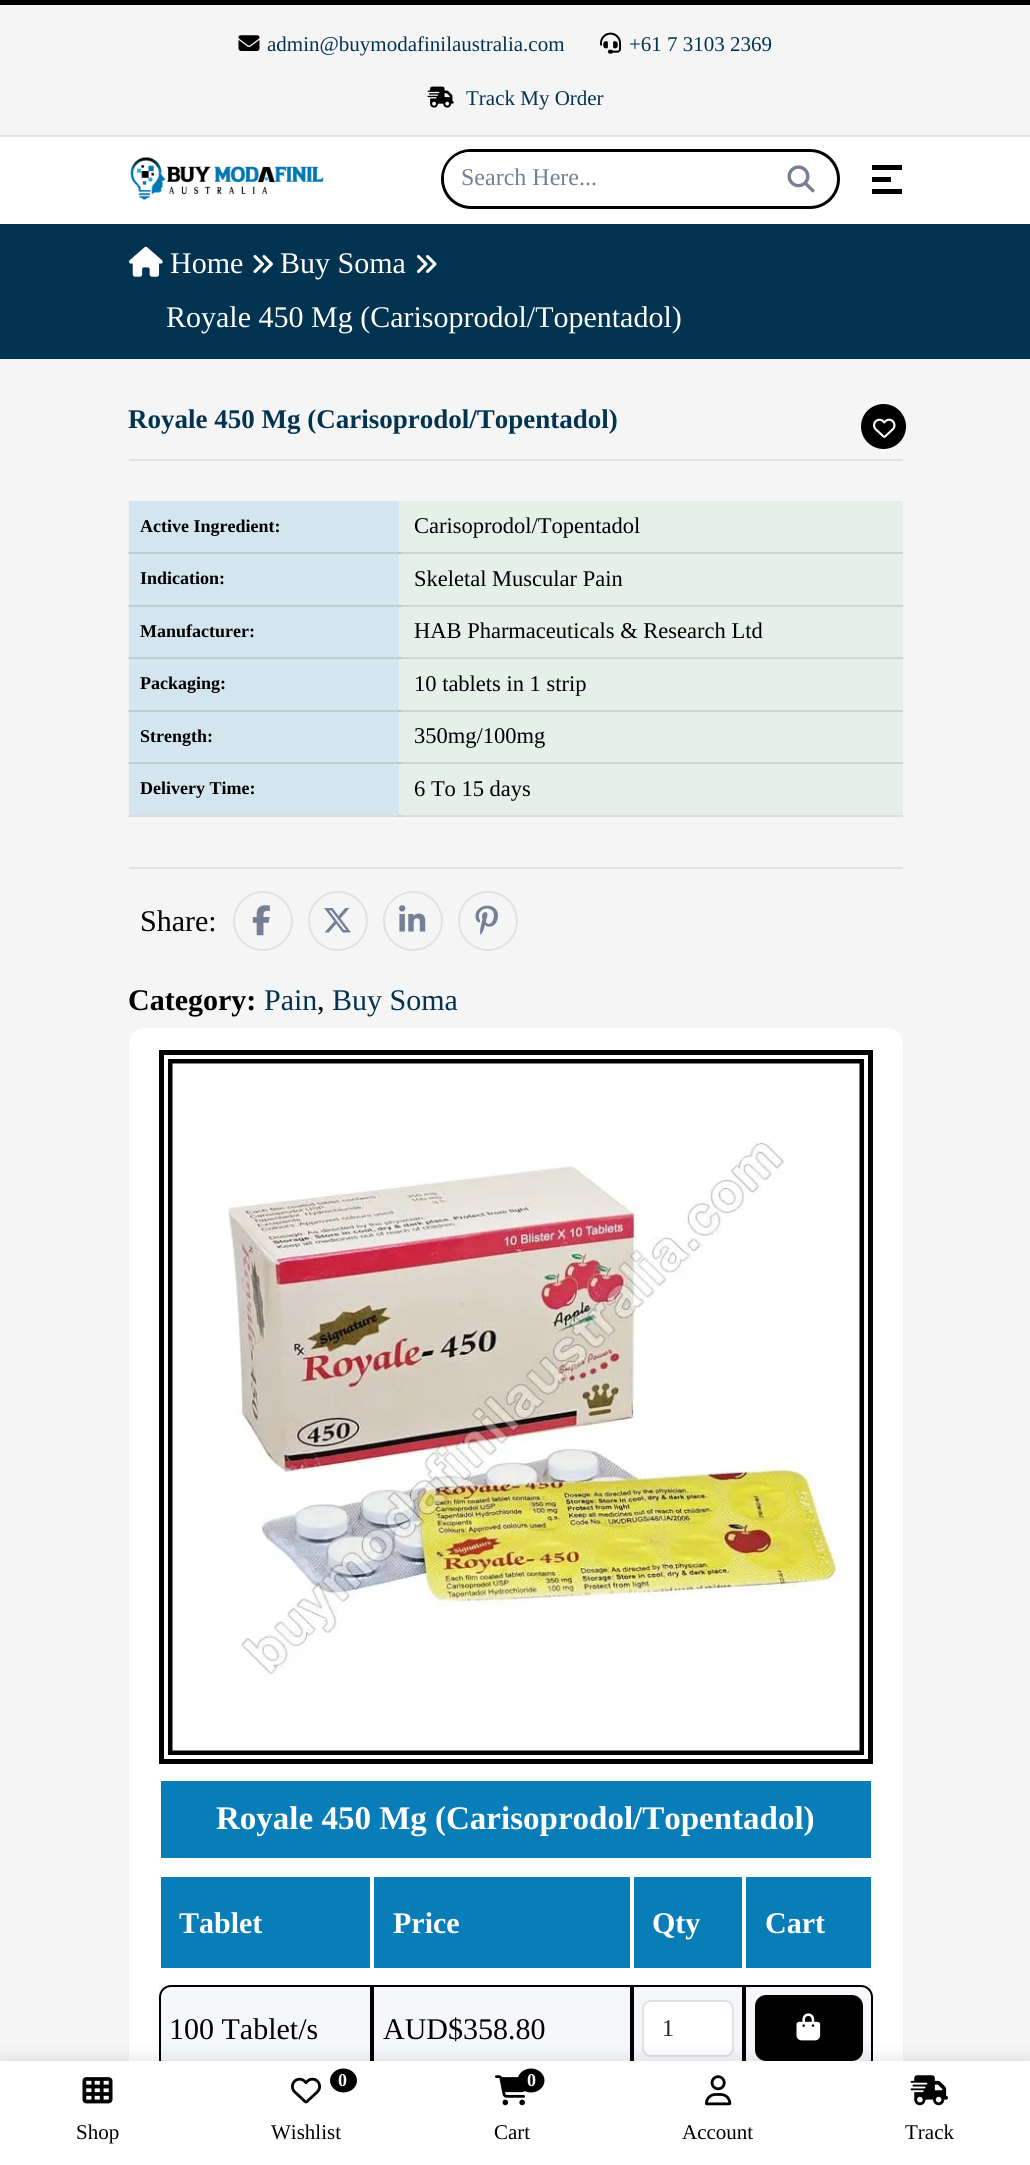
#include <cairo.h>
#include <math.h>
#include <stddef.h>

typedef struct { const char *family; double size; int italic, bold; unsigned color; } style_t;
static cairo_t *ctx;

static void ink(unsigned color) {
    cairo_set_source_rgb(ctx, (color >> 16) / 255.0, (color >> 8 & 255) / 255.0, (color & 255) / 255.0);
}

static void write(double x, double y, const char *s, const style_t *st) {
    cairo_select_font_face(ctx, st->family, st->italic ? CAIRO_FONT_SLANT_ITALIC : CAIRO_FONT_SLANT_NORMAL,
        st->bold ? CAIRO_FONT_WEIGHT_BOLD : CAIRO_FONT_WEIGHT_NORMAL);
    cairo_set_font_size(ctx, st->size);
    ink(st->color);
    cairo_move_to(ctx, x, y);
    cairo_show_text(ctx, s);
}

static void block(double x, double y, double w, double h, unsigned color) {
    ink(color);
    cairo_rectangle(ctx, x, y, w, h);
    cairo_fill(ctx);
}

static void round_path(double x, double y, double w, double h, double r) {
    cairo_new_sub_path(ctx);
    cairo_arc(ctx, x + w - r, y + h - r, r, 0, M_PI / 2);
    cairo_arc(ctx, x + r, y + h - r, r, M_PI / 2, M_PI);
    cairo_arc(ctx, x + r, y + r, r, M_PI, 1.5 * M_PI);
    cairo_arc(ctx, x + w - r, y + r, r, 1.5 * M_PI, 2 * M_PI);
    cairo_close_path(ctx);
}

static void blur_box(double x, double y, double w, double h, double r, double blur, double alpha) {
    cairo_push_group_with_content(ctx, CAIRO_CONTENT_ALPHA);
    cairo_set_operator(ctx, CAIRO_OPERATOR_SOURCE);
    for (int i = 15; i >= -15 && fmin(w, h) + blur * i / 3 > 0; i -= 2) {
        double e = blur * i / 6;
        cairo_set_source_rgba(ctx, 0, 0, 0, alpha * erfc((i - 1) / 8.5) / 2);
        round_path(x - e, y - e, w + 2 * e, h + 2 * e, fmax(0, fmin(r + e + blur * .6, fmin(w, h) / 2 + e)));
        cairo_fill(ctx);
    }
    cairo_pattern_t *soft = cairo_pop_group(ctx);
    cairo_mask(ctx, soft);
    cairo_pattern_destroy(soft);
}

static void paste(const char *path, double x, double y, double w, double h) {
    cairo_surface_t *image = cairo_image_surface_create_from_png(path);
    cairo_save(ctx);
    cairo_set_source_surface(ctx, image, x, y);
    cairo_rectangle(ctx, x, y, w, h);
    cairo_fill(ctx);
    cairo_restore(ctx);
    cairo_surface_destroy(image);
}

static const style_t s1 = {"Liberation Serif", 21, 0, 0, 0x023350};
static const style_t s2 = {"Liberation Serif", 24, 0, 0, 0x757f95};
static const style_t s3 = {"Liberation Serif", 30, 0, 0, 0xffffff};
static const style_t s4 = {"Liberation Serif", 27, 0, 1, 0x023350};
static const style_t s5 = {"Liberation Serif", 18, 0, 1, 0x000000};
static const style_t s6 = {"Liberation Serif", 22.5, 0, 0, 0x000000};
static const style_t s7 = {"Liberation Serif", 30, 0, 0, 0x000000};
static const style_t s8 = {"Liberation Serif", 30, 0, 1, 0x000000};
static const style_t s9 = {"Liberation Serif", 30, 0, 0, 0x023350};
static const style_t s10 = {"Liberation Serif", 33, 0, 1, 0xffffff};
static const style_t s11 = {"Liberation Serif", 30, 0, 1, 0xffffff};
static const style_t s12 = {"Liberation Serif", 24, 0, 0, 0x212529};
static const style_t s13 = {"Liberation Serif", 21, 0, 0, 0x000000};
static const style_t s14 = {"Liberation Serif", 18, 0, 1, 0xffffff};

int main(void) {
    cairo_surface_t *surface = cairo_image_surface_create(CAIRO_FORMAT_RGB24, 1030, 2165);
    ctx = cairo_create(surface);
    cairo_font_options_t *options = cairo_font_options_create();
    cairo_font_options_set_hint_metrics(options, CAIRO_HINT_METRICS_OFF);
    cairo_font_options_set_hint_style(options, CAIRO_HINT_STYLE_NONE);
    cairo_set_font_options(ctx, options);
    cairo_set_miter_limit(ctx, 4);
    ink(0xf5f5f5);
    cairo_paint(ctx);
    block(128, 552, 1, 2, 0xdddddd);
    block(128, 605, 1, 2, 0xdddddd);
    block(128, 657, 1, 2, 0xdddddd);
    block(128, 710, 1, 2, 0xdddddd);
    block(128, 762, 1, 2, 0xdddddd);
    block(128, 815, 775, 2, 0xdddddd);
    block(0, 0, 1030, 5, 0x000000);
    block(0, 135, 1030, 2, 0xe1e1e1);
    paste("pic1.png", 238, 35, 22, 16);
    write(267, 51, "admin@buymodafinilaustralia.com", &s1);
    paste("pic2.png", 600, 32, 21, 22);
    write(629, 51, "+61 7 3103 2369", &s1);
    paste("pic3.png", 427, 86, 27, 22);
    write(466, 105, "Track My Order", &s1);
    block(0, 137, 1030, 87, 0xffffff);
    paste("pic4.png", 130, 157, 194, 43);
    round_path(442.5, 150.5, 396, 57, 28.5);
    ink(0x000000);
    cairo_set_line_width(ctx, 3);
    cairo_stroke(ctx);
    ink(0xffffff);
    round_path(444, 152, 321, 52, 26);
    cairo_fill(ctx);
    write(461, 185, "Search Here...", &s2);
    paste("pic5.png", 787, 165, 28, 28);
    block(872, 165, 30, 5, 0x000000);
    block(872, 177, 19, 5, 0x000000);
    block(872, 189, 30, 5, 0x000000);
    block(0, 224, 1030, 135, 0x023350);
    paste("pic6.png", 129, 246, 34, 31);
    write(170, 273, "Home", &s3);
    paste("pic7.png", 253, 255, 20, 18);
    write(280, 273, "Buy Soma", &s3);
    paste("pic8.png", 417, 255, 20, 18);
    write(166, 327, "Royale 450 Mg (Carisoprodol/Topentadol)", &s3);
    write(128, 428, "Royale 450 Mg (Carisoprodol/Topentadol)", &s4);
    ink(0x000000);
    cairo_new_path(ctx);
    cairo_arc(ctx, 883.5, 426.5, 22.5, 0, 2 * M_PI);
    cairo_fill(ctx);
    paste("pic9.png", 873, 418, 23, 20);
    block(129, 459, 774, 2, 0xe1e1e1);
    block(129, 501, 270, 51, 0xd3e5ee);
    write(140, 532, "Active Ingredient:", &s5);
    block(399, 501, 504, 51, 0xe4f0e9);
    block(399, 552, 504, 2, 0xcdd8d2);
    block(399, 552, 2, 2, 0xb9c2bd);
    write(414, 533, "Carisoprodol/Topentadol", &s6);
    block(129, 554, 270, 51, 0xd3e5ee);
    block(129, 552, 270, 2, 0xbeced6);
    write(140, 584, "Indication:", &s5);
    block(399, 554, 504, 51, 0xe4f0e9);
    block(399, 605, 504, 2, 0xcdd8d2);
    block(399, 605, 2, 2, 0xb9c2bd);
    write(414, 586, "Skeletal Muscular Pain", &s6);
    block(129, 607, 270, 50, 0xd3e5ee);
    block(129, 605, 270, 2, 0xbeced6);
    write(140, 637, "Manufacturer:", &s5);
    block(399, 607, 504, 50, 0xe4f0e9);
    block(399, 657, 504, 2, 0xcdd8d2);
    block(399, 657, 2, 2, 0xb9c2bd);
    write(414, 638, "HAB Pharmaceuticals & Research Ltd", &s6);
    block(129, 659, 270, 51, 0xd3e5ee);
    block(129, 657, 270, 2, 0xbeced6);
    write(140, 689, "Packaging:", &s5);
    block(399, 659, 504, 51, 0xe4f0e9);
    block(399, 710, 504, 2, 0xcdd8d2);
    block(399, 710, 2, 2, 0xb9c2bd);
    write(414, 691, "10 tablets in 1 strip", &s6);
    block(129, 712, 270, 50, 0xd3e5ee);
    block(129, 710, 270, 2, 0xbeced6);
    write(140, 742, "Strength:", &s5);
    block(399, 712, 504, 50, 0xe4f0e9);
    block(399, 762, 504, 2, 0xcdd8d2);
    block(399, 762, 2, 2, 0xb9c2bd);
    write(414, 743, "350mg/100mg", &s6);
    block(129, 764, 270, 51, 0xd3e5ee);
    block(129, 762, 270, 2, 0xbeced6);
    write(140, 794, "Delivery Time:", &s5);
    block(399, 764, 504, 51, 0xe4f0e9);
    block(399, 815, 2, 2, 0xc7c7c7);
    write(414, 796, "6 To 15 days", &s6);
    block(129, 867, 774, 2, 0xe1e1e1);
    write(140, 931, "Share:", &s7);
    cairo_new_path(ctx);
    cairo_arc(ctx, 263, 921, 29, 0, 2 * M_PI);
    ink(0xe1e1e1);
    cairo_set_line_width(ctx, 2);
    cairo_stroke(ctx);
    paste("pic10.png", 252, 905, 18, 31);
    cairo_arc(ctx, 338, 921, 29, 0, 2 * M_PI);
    cairo_stroke(ctx);
    paste("pic11.png", 324, 908, 27, 25);
    cairo_arc(ctx, 413, 921, 29, 0, 2 * M_PI);
    cairo_stroke(ctx);
    paste("pic12.png", 399, 905, 27, 27);
    cairo_arc(ctx, 488, 921, 29, 0, 2 * M_PI);
    cairo_stroke(ctx);
    paste("pic13.png", 475, 905, 23, 30);
    write(128, 1010, "Category:", &s8);
    write(264, 1010, "Pain", &s9);
    write(317, 1010, ",", &s7);
    write(332, 1010, "Buy Soma", &s9);
    ink(0xffffff);
    round_path(129, 1028, 774, 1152, 15);
    cairo_fill(ctx);
    cairo_rectangle(ctx, 161.5, 1052.5, 709, 709);
    ink(0x000000);
    cairo_set_line_width(ctx, 5);
    cairo_stroke(ctx);
    cairo_rectangle(ctx, 170.5, 1061.5, 691, 691);
    cairo_stroke(ctx);
    paste("pic14.png", 172, 1063, 688, 688);
    block(161, 1781, 710, 77, 0x097db7);
    write(216, 1829, "Royale 450 Mg (Carisoprodol/Topentadol)", &s10);
    block(161, 1877, 209, 91, 0x097db7);
    write(179, 1933, "Tablet", &s11);
    block(374, 1877, 256, 91, 0x097db7);
    write(393, 1933, "Price", &s11);
    block(634, 1877, 108, 91, 0x097db7);
    write(652, 1933, "Qty", &s11);
    block(746, 1877, 125, 91, 0x097db7);
    write(765, 1933, "Cart", &s11);
    block(159, 1985, 714, 76, 0xf5f7fa);
    cairo_new_path(ctx);
    cairo_move_to(ctx, 171, 1986);
    cairo_line_to(ctx, 371, 1986);
    cairo_line_to(ctx, 371, 2071);
    cairo_line_to(ctx, 171, 2071);
    cairo_curve_to(ctx, 165, 2071, 160, 2066, 160, 2060);
    cairo_line_to(ctx, 160, 1997);
    cairo_curve_to(ctx, 160, 1991, 165, 1986, 171, 1986);
    cairo_close_path(ctx);
    ink(0x000000);
    cairo_set_line_width(ctx, 2);
    cairo_stroke(ctx);
    write(169, 2039, "100 Tablet/s", &s7);
    cairo_rectangle(ctx, 373, 1986, 258, 85);
    cairo_stroke(ctx);
    write(383, 2039, "AUD$358.80", &s7);
    cairo_rectangle(ctx, 633, 1986, 110, 85);
    cairo_stroke(ctx);
    ink(0xffffff);
    round_path(643, 2001, 90, 55, 8);
    cairo_fill_preserve(ctx);
    ink(0xdee2e6);
    cairo_stroke(ctx);
    write(662, 2036, "1", &s12);
    cairo_new_path(ctx);
    cairo_move_to(ctx, 745, 1986);
    cairo_line_to(ctx, 861, 1986);
    cairo_curve_to(ctx, 867, 1986, 872, 1991, 872, 1997);
    cairo_line_to(ctx, 872, 2060);
    cairo_curve_to(ctx, 872, 2066, 867, 2071, 861, 2071);
    cairo_line_to(ctx, 745, 2071);
    cairo_close_path(ctx);
    ink(0x000000);
    cairo_stroke(ctx);
    round_path(755, 1995, 108, 66, 11);
    cairo_fill(ctx);
    paste("pic15.png", 796, 2013, 25, 28);
    ink(0x000000);
    blur_box(0, 2058, 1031, 105, 0, 7.5, 0.1);
    block(0, 2061, 1030, 104, 0xffffff);
    paste("pic16.png", 82, 2077, 31, 27);
    write(76, 2139, "Shop", &s13);
    paste("pic17.png", 291, 2077, 30, 27);
    cairo_new_path(ctx);
    cairo_move_to(ctx, 343.5, 2068.5);
    cairo_curve_to(ctx, 351, 2068.5, 357, 2074, 357, 2080.5);
    cairo_curve_to(ctx, 357, 2087, 351, 2092.5, 343.5, 2092.5);
    cairo_curve_to(ctx, 336, 2092.5, 330, 2087, 330, 2080.5);
    cairo_curve_to(ctx, 330, 2074, 336, 2068.5, 343.5, 2068.5);
    cairo_close_path(ctx);
    cairo_fill(ctx);
    write(338, 2086, "0", &s14);
    write(271, 2139, "Wishlist", &s13);
    paste("pic18.png", 495, 2075, 30, 31);
    cairo_new_path(ctx);
    cairo_move_to(ctx, 531, 2068.5);
    cairo_curve_to(ctx, 538.5, 2068.5, 544.5, 2074, 544.5, 2080.5);
    cairo_curve_to(ctx, 544.5, 2087, 538.5, 2092.5, 531, 2092.5);
    cairo_curve_to(ctx, 523.5, 2092.5, 517.5, 2087, 517.5, 2080.5);
    cairo_curve_to(ctx, 517.5, 2074, 523.5, 2068.5, 531, 2068.5);
    cairo_close_path(ctx);
    cairo_fill(ctx);
    write(527, 2086, "0", &s14);
    write(494, 2139, "Cart", &s13);
    paste("pic19.png", 705, 2075, 27, 31);
    write(682, 2139, "Account", &s13);
    paste("pic20.png", 910, 2075, 38, 31);
    write(905, 2139, "Track", &s13);
    cairo_surface_write_to_png(surface, "screenshot.png");
    cairo_font_options_destroy(options);
    cairo_destroy(ctx);
    cairo_surface_destroy(surface);
    return 0;
}
